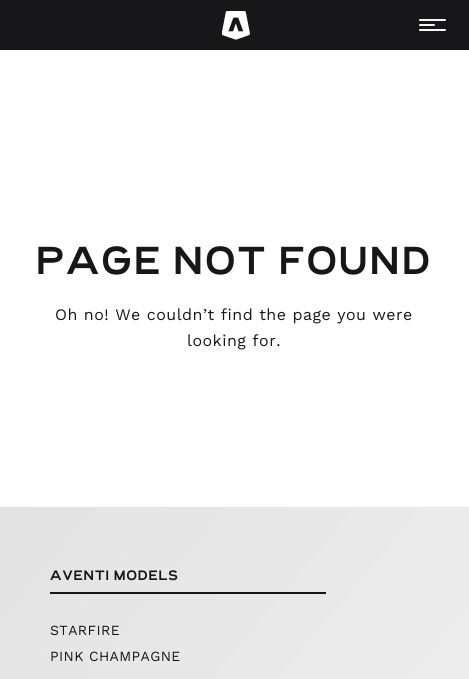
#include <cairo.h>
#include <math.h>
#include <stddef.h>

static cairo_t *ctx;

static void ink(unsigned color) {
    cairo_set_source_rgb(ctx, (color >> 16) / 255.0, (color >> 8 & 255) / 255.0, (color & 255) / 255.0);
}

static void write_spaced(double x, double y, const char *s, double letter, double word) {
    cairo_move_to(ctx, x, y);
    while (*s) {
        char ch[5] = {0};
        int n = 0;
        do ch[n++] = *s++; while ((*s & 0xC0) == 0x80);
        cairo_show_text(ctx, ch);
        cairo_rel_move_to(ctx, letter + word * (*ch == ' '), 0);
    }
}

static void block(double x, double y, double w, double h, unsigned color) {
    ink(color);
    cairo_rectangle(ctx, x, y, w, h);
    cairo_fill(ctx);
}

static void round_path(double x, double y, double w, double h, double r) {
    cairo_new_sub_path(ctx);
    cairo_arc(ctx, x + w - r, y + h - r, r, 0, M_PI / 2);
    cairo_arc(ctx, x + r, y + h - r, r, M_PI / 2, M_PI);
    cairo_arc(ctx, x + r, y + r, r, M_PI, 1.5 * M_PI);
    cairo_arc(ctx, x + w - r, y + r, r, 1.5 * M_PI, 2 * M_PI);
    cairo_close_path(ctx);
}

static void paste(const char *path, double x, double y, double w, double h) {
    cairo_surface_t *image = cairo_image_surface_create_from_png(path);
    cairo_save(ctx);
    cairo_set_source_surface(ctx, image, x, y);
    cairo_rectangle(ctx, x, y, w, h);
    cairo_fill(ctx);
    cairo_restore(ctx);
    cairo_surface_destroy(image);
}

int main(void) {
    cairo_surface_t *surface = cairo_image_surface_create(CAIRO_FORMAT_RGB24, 469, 679);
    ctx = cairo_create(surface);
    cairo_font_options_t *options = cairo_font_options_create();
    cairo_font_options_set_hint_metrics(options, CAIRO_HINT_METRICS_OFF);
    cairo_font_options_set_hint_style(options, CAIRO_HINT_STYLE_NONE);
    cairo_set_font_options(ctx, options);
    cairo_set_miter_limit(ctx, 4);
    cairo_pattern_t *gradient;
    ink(0xffffff);
    cairo_paint(ctx);
    block(0, 0, 469, 50, 0x171719);
    paste("pic1.png", 222, 11, 28, 29);
    ink(0xf7f7f7);
    round_path(419, 19, 27, 2, 1);
    cairo_fill(ctx);
    round_path(419, 24, 16, 2, 1);
    cairo_fill(ctx);
    round_path(419, 29, 27, 2, 1);
    cairo_fill(ctx);
    cairo_select_font_face(ctx, "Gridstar", CAIRO_FONT_SLANT_NORMAL, CAIRO_FONT_WEIGHT_NORMAL);
    cairo_set_font_size(ctx, 40);
    ink(0x171719);
    write_spaced(36, 274, "Page not found", 2.75, 0);
    cairo_select_font_face(ctx, "Work Sans", CAIRO_FONT_SLANT_NORMAL, CAIRO_FONT_WEIGHT_NORMAL);
    cairo_set_font_size(ctx, 16);
    write_spaced(55, 320, "Oh no! We couldn’t find the page you were", 0.5, 0);
    write_spaced(187, 346, "looking for.", 0.5, 0);
    gradient = cairo_pattern_create_linear(-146, 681, 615, 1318);
    cairo_pattern_add_color_stop_rgba(gradient, 0, 0.89, 0.89, 0.89, 1);
    cairo_pattern_add_color_stop_rgba(gradient, 1, 0.969, 0.969, 0.969, 1);
    cairo_set_source(ctx, gradient);
    cairo_pattern_destroy(gradient);
    cairo_rectangle(ctx, 0, 507, 469, 172);
    cairo_fill(ctx);
    block(50, 592, 276, 2, 0x171719);
    cairo_select_font_face(ctx, "Gridstar", CAIRO_FONT_SLANT_NORMAL, CAIRO_FONT_WEIGHT_NORMAL);
    cairo_set_font_size(ctx, 14);
    write_spaced(50, 580, "AVENTI MODELS", 1, 0);
    cairo_select_font_face(ctx, "Work Sans", CAIRO_FONT_SLANT_NORMAL, CAIRO_FONT_WEIGHT_NORMAL);
    write_spaced(50, 635, "STARFIRE", 0.4, 0);
    write_spaced(50, 661, "PINK CHAMPAGNE", 0.4, 0);
    cairo_surface_write_to_png(surface, "screenshot.png");
    cairo_font_options_destroy(options);
    cairo_destroy(ctx);
    cairo_surface_destroy(surface);
    return 0;
}
